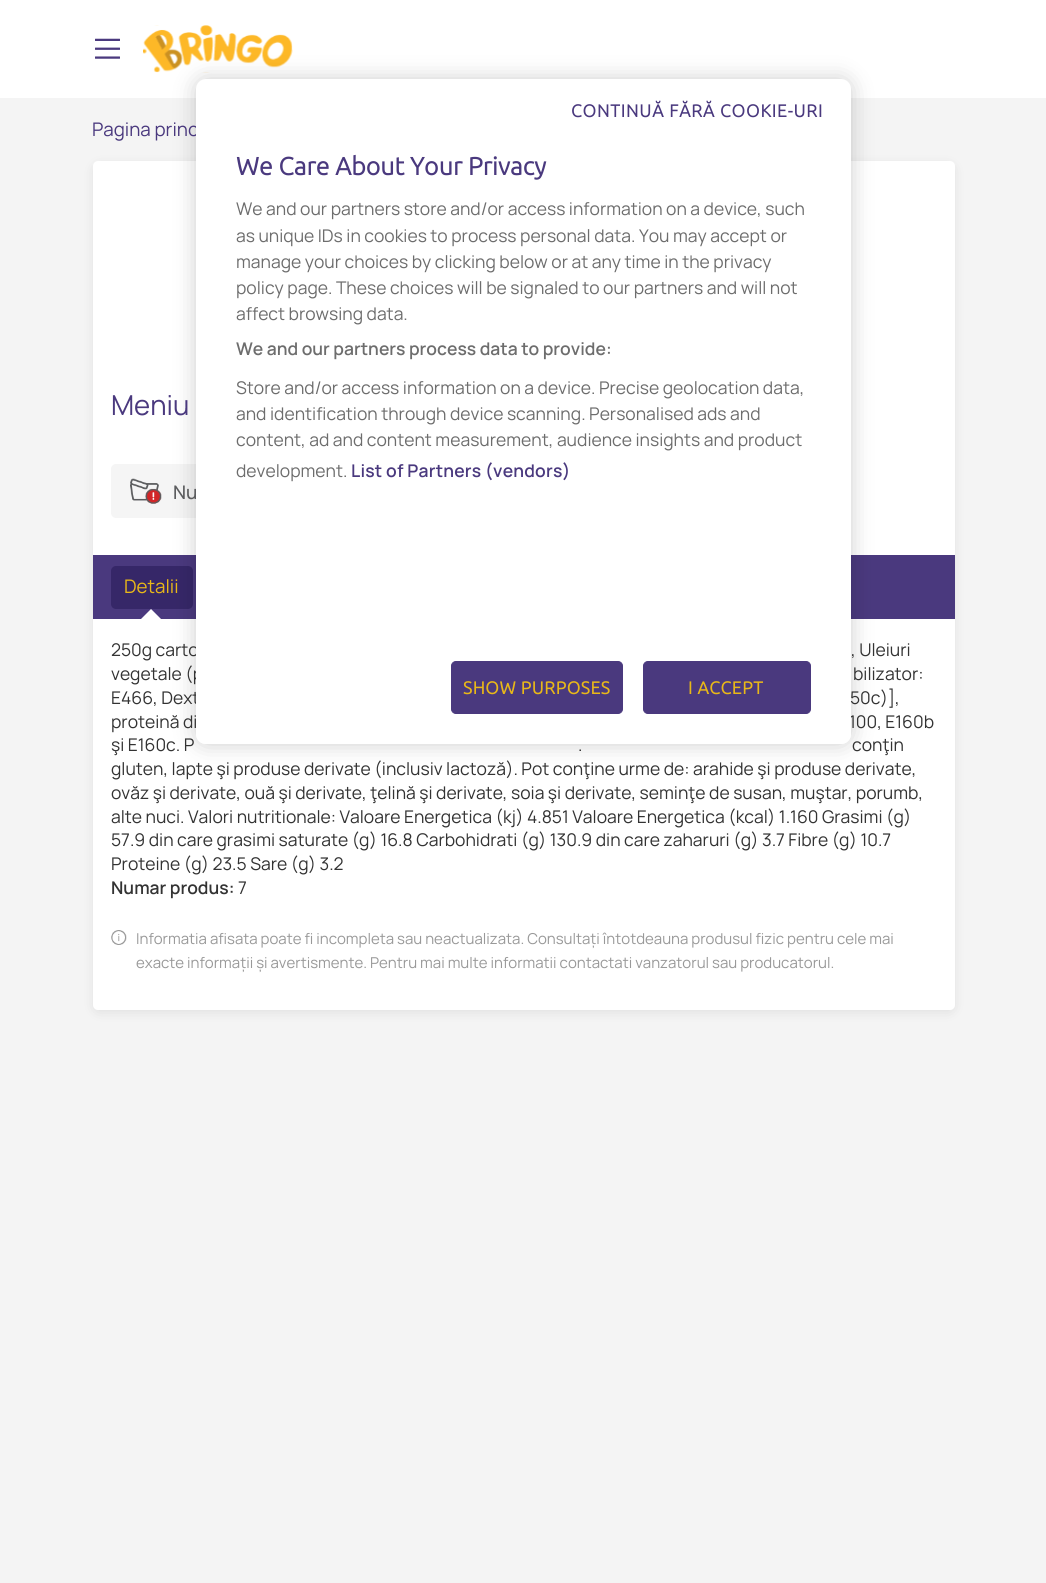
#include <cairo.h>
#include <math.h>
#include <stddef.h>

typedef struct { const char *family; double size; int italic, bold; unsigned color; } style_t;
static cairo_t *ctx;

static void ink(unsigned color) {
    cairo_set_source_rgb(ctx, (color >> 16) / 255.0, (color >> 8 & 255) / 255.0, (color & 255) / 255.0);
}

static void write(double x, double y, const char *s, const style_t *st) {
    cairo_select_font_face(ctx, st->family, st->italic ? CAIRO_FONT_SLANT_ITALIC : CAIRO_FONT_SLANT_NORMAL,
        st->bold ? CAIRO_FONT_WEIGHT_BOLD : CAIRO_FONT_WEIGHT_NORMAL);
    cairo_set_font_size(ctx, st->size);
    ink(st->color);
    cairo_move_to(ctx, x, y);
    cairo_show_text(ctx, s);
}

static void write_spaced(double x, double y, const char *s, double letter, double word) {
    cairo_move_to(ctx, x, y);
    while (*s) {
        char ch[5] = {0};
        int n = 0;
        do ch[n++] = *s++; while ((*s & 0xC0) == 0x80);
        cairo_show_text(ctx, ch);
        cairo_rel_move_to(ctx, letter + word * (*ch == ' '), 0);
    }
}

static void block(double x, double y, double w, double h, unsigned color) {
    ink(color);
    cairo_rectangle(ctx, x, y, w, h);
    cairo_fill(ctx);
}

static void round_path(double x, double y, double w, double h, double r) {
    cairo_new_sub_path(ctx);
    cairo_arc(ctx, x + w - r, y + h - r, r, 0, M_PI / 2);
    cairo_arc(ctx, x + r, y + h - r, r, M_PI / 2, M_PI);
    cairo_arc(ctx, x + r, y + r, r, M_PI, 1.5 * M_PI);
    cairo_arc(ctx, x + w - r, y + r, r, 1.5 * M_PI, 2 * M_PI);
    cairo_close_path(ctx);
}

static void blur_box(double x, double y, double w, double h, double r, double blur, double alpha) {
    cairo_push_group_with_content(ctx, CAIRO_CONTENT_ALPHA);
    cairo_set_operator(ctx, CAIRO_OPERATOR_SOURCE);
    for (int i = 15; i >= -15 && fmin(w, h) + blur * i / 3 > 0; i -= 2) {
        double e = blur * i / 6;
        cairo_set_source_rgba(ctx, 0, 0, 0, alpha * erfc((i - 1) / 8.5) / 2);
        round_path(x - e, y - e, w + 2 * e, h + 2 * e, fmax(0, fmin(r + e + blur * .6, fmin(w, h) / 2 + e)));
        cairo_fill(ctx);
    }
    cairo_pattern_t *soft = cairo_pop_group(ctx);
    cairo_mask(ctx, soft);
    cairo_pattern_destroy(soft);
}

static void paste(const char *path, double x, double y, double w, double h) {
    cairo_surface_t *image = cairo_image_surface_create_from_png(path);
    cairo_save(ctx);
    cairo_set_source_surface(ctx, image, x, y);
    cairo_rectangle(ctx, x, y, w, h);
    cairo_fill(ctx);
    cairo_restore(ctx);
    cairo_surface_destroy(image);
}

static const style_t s1 = {"Manrope", 18.75, 0, 0, 0x4a397e};
static const style_t s2 = {"Manrope Medium", 18.75, 0, 0, 0x5c5d5f};
static const style_t s3 = {"Manrope", 17.5, 0, 0, 0x333333};
static const style_t s4 = {"Ubuntu", 25, 0, 1, 0x4a397e};
static const style_t s5 = {"Manrope", 17.5, 0, 0, 0x6d6d6d};
static const style_t s6 = {"Manrope SemiBold", 17.5, 0, 0, 0x6d6d6d};
static const style_t s7 = {"Manrope", 27.5, 0, 0, 0x4a397e};
static const style_t s8 = {"Manrope", 18.75, 0, 0, 0xe9b818};
static const style_t s9 = {"Manrope SemiBold", 17.5, 0, 0, 0x333333};
static const style_t s10 = {"Manrope", 15, 0, 0, 0x999999};

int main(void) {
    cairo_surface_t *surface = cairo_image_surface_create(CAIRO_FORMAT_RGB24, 1046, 1583);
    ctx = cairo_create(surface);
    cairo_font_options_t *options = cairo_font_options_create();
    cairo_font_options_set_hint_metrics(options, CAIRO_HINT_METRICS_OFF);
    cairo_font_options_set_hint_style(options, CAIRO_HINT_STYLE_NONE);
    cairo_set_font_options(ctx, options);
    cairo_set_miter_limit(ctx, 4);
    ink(0xf4f4f4);
    cairo_paint(ctx);
    block(0, 0, 1046, 98, 0xffffff);
    paste("pic2.png", 143, 25, 150, 48);
    ink(0x000000);
    blur_box(98, 169, 852, 839, 0, 7.5, 0.15);
    ink(0xffffff);
    round_path(93, 161, 862, 849, 5);
    cairo_fill(ctx);
    ink(0xf5f5f5);
    round_path(111, 464, 218, 54, 5);
    cairo_fill(ctx);
    block(93, 555, 862, 64, 0x4a397e);
    ink(0x362768);
    round_path(111, 566, 82, 43, 5);
    cairo_fill(ctx);
    ink(0xffffff);
    cairo_new_path(ctx);
    cairo_move_to(ctx, 166, 624);
    cairo_line_to(ctx, 136, 624);
    cairo_line_to(ctx, 151, 609);
    cairo_close_path(ctx);
    cairo_fill(ctx);
    ink(0x000000);
    blur_box(196, 79, 655, 665, 10, 11, 0.2);
    write(92, 136, "Pagina princ", &s1);
    write(173, 499, "Nu", &s2);
    write(111, 656, "250g carto", &s3);
    write(111, 680, "vegetale (p", &s3);
    write(111, 704, "E466, Dext", &s3);
    write(849, 728, "100, E160b", &s3);
    ink(0xffffff);
    round_path(196, 79, 655, 665, 10);
    cairo_fill(ctx);
    cairo_select_font_face(ctx, "Ubuntu", CAIRO_FONT_SLANT_NORMAL, CAIRO_FONT_WEIGHT_BOLD);
    ink(0x4a397e);
    write_spaced(571, 117, "CONTINUĂ FĂRĂ COOKIE-URI", 0.9, 0);
    write(236, 175, "We Care About Your Privacy", &s4);
    write(236, 215, "We and our partners store and/or access information on a device, such", &s5);
    write(236, 242, "as unique IDs in cookies to process personal data. You may accept or", &s5);
    write(236, 268, "manage your choices by clicking below or at any time in the privacy", &s5);
    write(236, 294, "policy page. These choices will be signaled to our partners and will not", &s5);
    write(236, 320, "affect browsing data.", &s5);
    write(236, 355, "We and our partners process data to provide:", &s6);
    write(236, 394, "Store and/or access information on a device. Precise geolocation data,", &s5);
    write(236, 420, "and identification through device scanning. Personalised ads and", &s5);
    write(236, 446, "content, ad and content measurement, audience insights and product", &s5);
    write(236, 477, "development.", &s5);
    cairo_select_font_face(ctx, "Manrope SemiBold", CAIRO_FONT_SLANT_NORMAL, CAIRO_FONT_WEIGHT_NORMAL);
    ink(0x4a397e);
    write_spaced(351, 477, "List of Partners (vendors)", 0.2, 0);
    ink(0xffffff);
    cairo_new_path(ctx);
    cairo_move_to(ctx, 196, 641);
    cairo_line_to(ctx, 851, 641);
    cairo_line_to(ctx, 851, 734);
    cairo_curve_to(ctx, 851, 739.5, 846.5, 744, 841, 744);
    cairo_line_to(ctx, 206, 744);
    cairo_curve_to(ctx, 200.5, 744, 196, 739.5, 196, 734);
    cairo_close_path(ctx);
    cairo_fill(ctx);
    ink(0x4a397e);
    round_path(451.5, 661.5, 171, 52, 4.5);
    cairo_fill_preserve(ctx);
    cairo_set_line_width(ctx, 1);
    cairo_stroke(ctx);
    cairo_select_font_face(ctx, "Ubuntu", CAIRO_FONT_SLANT_NORMAL, CAIRO_FONT_WEIGHT_BOLD);
    ink(0xe9b818);
    write_spaced(463, 694, "SHOW PURPOSES", 0.6, 0);
    ink(0x4a397e);
    round_path(643.5, 661.5, 167, 52, 4.5);
    cairo_fill_preserve(ctx);
    cairo_stroke(ctx);
    ink(0xe9b818);
    write_spaced(688, 694, "I ACCEPT", 0.6, 0);
    paste("pic1.png", 95, 38, 25, 21);
    write(111, 415, "Meniu", &s7);
    paste("pic3.png", 130, 478, 32, 26);
    write(124, 593, "Detalii", &s8);
    write(851, 656, ", Uleiuri", &s3);
    write(853, 680, "bilizator:", &s3);
    write(850, 704, "50c)],", &s3);
    write(111, 728, "proteină di", &s3);
    write(111, 751, "şi E160c. P", &s3);
    write(578, 751, ".", &s3);
    write(852, 751, "conţin", &s3);
    write(111, 775, "gluten, lapte şi produse derivate (inclusiv lactoză). Pot conţine urme de: arahide şi produse derivate,", &s3);
    write(111, 799, "ovăz şi derivate, ouă şi derivate, ţelină şi derivate, soia şi derivate, seminţe de susan, muştar, porumb,", &s3);
    write(111, 823, "alte nuci. Valori nutritionale: Valoare Energetica (kj) 4.851 Valoare Energetica (kcal) 1.160 Grasimi (g)", &s3);
    write(111, 846, "57.9 din care grasimi saturate (g) 16.8 Carbohidrati (g) 130.9 din care zaharuri (g) 3.7 Fibre (g) 10.7", &s3);
    write(111, 870, "Proteine (g) 23.5 Sare (g) 3.2", &s3);
    write(111, 894, "Numar produs:", &s9);
    write(238, 894, "7", &s3);
    paste("pic4.png", 111, 930, 16, 15);
    write(136, 944, "Informatia afisata poate fi incompleta sau neactualizata. Consultați întotdeauna produsul fizic pentru cele mai", &s10);
    write(136, 968, "exacte informații și avertismente. Pentru mai multe informatii contactati vanzatorul sau producatorul.", &s10);
    cairo_surface_write_to_png(surface, "screenshot.png");
    cairo_font_options_destroy(options);
    cairo_destroy(ctx);
    cairo_surface_destroy(surface);
    return 0;
}
